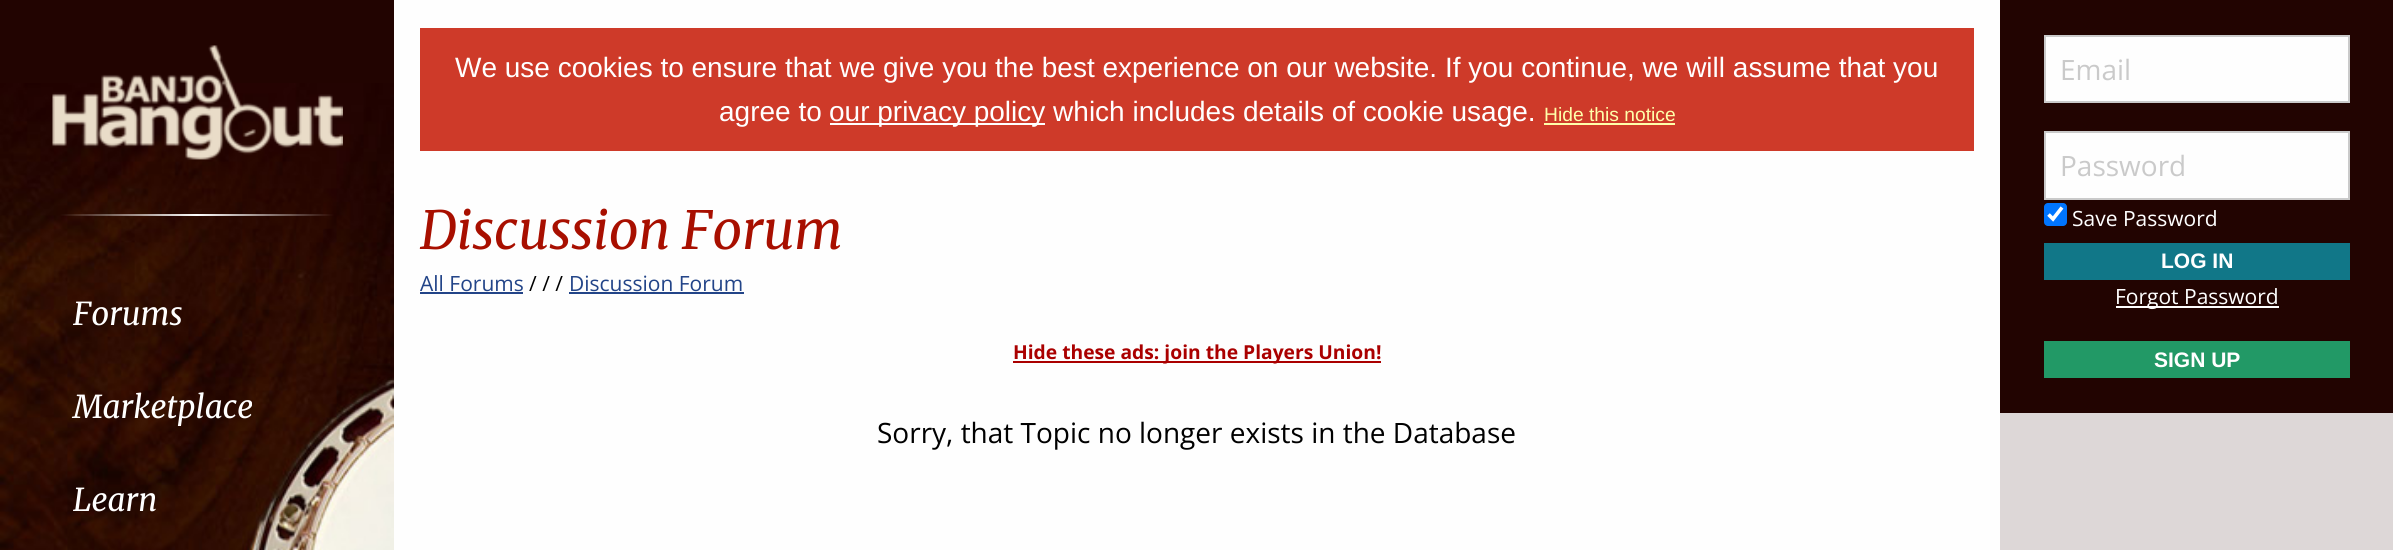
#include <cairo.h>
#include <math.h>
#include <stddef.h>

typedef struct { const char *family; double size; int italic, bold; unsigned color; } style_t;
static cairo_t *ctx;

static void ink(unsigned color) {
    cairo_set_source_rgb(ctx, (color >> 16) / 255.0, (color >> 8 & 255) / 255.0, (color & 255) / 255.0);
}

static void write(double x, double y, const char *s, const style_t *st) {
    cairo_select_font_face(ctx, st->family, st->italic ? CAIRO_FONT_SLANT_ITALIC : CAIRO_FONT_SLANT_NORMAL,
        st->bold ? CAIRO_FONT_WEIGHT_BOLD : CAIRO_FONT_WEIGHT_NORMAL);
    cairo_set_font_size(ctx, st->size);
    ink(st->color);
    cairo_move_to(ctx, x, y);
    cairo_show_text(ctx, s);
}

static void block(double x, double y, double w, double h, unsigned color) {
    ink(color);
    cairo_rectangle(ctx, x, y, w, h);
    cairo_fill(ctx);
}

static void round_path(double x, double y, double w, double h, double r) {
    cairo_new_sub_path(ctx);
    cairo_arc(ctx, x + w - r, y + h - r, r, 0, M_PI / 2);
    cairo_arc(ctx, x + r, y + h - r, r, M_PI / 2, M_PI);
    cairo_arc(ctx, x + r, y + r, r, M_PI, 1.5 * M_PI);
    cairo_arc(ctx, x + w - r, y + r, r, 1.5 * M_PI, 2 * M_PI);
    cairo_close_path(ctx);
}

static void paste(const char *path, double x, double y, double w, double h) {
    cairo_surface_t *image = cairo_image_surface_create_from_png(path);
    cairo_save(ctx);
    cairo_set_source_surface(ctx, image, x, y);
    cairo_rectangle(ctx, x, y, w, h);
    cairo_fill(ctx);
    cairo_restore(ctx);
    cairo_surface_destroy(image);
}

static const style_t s1 = {"Liberation Sans", 28, 0, 0, 0xffffff};
static const style_t s2 = {"Liberation Sans", 19.25, 0, 0, 0xffffaa};
static const style_t s3 = {"Merriweather", 52.5, 1, 0, 0xa80f00};
static const style_t s4 = {"Open Sans", 21, 0, 0, 0x224488};
static const style_t s5 = {"Open Sans", 21, 0, 0, 0x000000};
static const style_t s6 = {"Open Sans", 19.25, 0, 1, 0xaa0000};
static const style_t s7 = {"Open Sans", 28, 0, 0, 0x000000};
static const style_t s8 = {"Open Sans", 28, 0, 0, 0xcacaca};
static const style_t s9 = {"Open Sans", 21, 0, 0, 0xffffff};
static const style_t s10 = {"Liberation Sans", 21, 0, 1, 0xffffff};
static const style_t s11 = {"Merriweather", 31.5, 1, 0, 0xffffff};

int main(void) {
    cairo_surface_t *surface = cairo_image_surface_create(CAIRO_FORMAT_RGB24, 2393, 550);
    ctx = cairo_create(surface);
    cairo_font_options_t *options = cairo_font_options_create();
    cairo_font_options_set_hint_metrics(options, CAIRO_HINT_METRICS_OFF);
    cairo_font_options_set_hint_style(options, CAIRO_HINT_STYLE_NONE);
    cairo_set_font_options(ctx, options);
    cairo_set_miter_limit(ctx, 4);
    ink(0xfefefe);
    cairo_paint(ctx);
    block(420, 28, 1554, 123, 0xce3a29);
    write(455, 77, "We use cookies to ensure that we give you the best experience on our website. If you continue, we will assume that you", &s1);
    write(719, 121, "agree to", &s1);
    block(830, 123, 215, 2, 0xffffff);
    write(829, 121, "our privacy policy which includes details of cookie usage.", &s1);
    write(1544, 121, "Hide this notice", &s2);
    block(1544, 123, 131, 2, 0xffffaa);
    write(420, 249, "Discussion Forum", &s3);
    write(420, 291, "All Forums", &s4);
    block(420, 292, 103, 2, 0x224488);
    write(529, 291, "/ / /", &s5);
    write(569, 291, "Discussion Forum", &s4);
    block(569, 292, 175, 2, 0x224488);
    block(1013, 361, 368, 2, 0xaa0000);
    write(1013, 359, "Hide these ads: join the Players Union!", &s6);
    write(877, 443, "Sorry, that Topic no longer exists in the Database", &s7);
    block(2000, 413, 393, 137, 0xddd7d7);
    block(2000, 0, 393, 413, 0x220401);
    ink(0xfefefe);
    cairo_rectangle(ctx, 2045, 36, 304, 66);
    cairo_fill_preserve(ctx);
    ink(0xcacaca);
    cairo_stroke(ctx);
    write(2060, 80, "Email", &s8);
    ink(0xfefefe);
    cairo_rectangle(ctx, 2045, 132, 304, 67);
    cairo_fill_preserve(ctx);
    ink(0xcacaca);
    cairo_stroke(ctx);
    write(2060, 176, "Password", &s8);
    ink(0x0075ff);
    round_path(2044, 203, 23, 23, 4);
    cairo_fill(ctx);
    cairo_new_path(ctx);
    cairo_move_to(ctx, 2048.5, 214.5);
    cairo_line_to(ctx, 2053, 219);
    cairo_line_to(ctx, 2062, 207.5);
    ink(0xffffff);
    cairo_set_line_width(ctx, 3.6);
    cairo_stroke(ctx);
    write(2072, 226, "Save Password", &s9);
    block(2044, 243, 306, 37, 0x117788);
    write(2161, 268, "LOG IN", &s10);
    block(2116, 306, 163, 2, 0xfefefe);
    write(2115, 304, "Forgot Password", &s9);
    block(2044, 341, 306, 37, 0x229966);
    write(2154, 367, "SIGN UP", &s10);
    block(0, 0, 394, 83, 0x220401);
    paste("pic1.png", 0, 83, 394, 467);
    paste("pic2.png", 52, 45, 291, 115);
    write(73, 325, "Forums", &s11);
    write(73, 418, "Marketplace", &s11);
    write(73, 511, "Learn", &s11);
    cairo_surface_write_to_png(surface, "screenshot.png");
    cairo_font_options_destroy(options);
    cairo_destroy(ctx);
    cairo_surface_destroy(surface);
    return 0;
}
